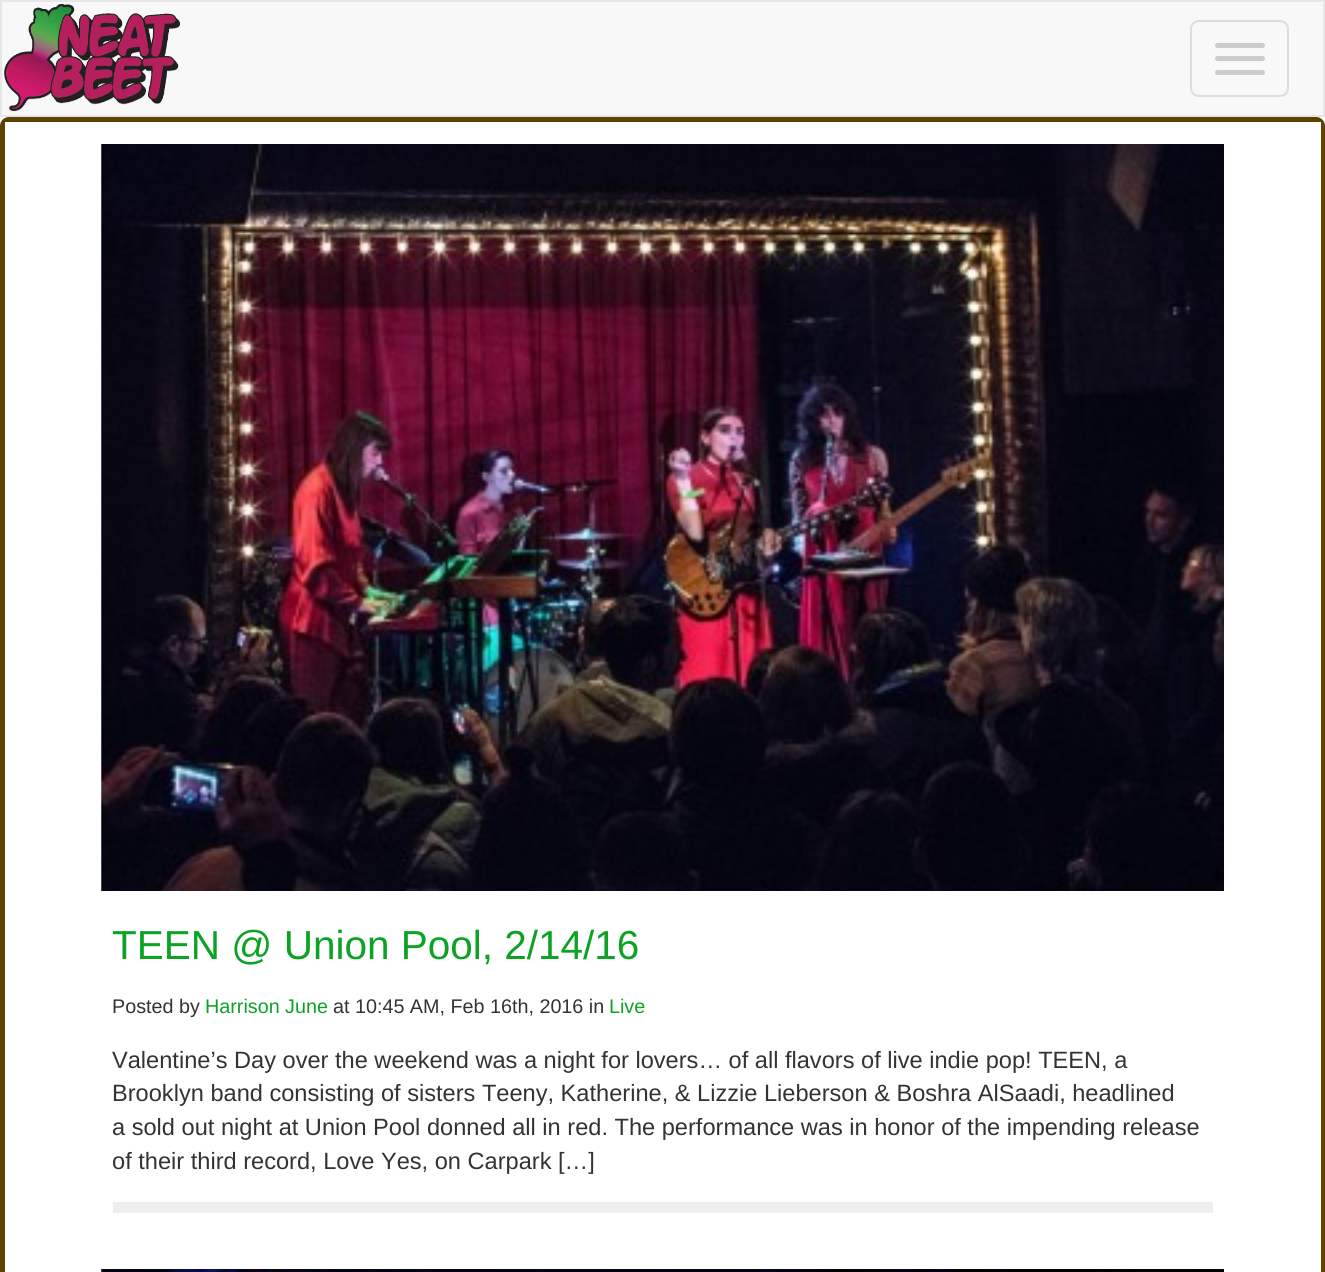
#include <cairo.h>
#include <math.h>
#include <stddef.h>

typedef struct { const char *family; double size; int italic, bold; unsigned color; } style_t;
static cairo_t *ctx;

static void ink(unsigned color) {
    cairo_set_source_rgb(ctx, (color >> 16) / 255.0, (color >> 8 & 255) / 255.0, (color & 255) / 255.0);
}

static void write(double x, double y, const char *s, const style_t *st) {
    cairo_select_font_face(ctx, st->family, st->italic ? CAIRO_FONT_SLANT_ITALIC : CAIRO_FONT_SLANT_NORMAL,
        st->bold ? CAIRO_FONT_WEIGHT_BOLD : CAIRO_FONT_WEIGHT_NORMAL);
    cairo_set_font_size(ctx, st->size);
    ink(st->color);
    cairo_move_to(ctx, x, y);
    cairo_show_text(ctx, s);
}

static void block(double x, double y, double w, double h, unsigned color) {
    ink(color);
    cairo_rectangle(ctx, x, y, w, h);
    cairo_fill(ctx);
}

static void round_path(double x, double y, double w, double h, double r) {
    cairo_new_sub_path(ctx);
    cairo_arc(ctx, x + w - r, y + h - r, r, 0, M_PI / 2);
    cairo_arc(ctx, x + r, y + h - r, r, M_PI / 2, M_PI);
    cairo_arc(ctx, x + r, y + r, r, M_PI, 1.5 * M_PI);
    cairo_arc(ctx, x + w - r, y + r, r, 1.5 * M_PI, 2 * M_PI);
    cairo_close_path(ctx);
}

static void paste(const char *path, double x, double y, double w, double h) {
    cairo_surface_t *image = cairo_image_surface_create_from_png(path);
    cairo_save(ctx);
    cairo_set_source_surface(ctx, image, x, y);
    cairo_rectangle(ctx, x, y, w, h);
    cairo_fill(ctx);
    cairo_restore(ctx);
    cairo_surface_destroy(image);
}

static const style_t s1 = {"Liberation Sans", 40.5, 0, 0, 0x0ca325};
static const style_t s2 = {"Liberation Sans", 19.75, 0, 0, 0x333333};
static const style_t s3 = {"Liberation Sans", 19.75, 0, 0, 0x0ca325};
static const style_t s4 = {"Liberation Sans", 23.6, 0, 0, 0x333333};

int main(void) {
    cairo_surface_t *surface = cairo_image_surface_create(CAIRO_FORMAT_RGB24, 1325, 1272);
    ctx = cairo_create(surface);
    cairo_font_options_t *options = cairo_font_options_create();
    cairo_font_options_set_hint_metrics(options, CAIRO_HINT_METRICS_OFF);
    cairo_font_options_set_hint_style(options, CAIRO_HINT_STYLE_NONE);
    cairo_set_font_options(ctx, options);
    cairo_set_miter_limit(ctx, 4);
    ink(0xffffff);
    cairo_paint(ctx);
    ink(0xf8f8f8);
    cairo_rectangle(ctx, 1, 1, 1323, 115);
    cairo_fill_preserve(ctx);
    ink(0xe7e7e7);
    cairo_stroke(ctx);
    paste("pic1.png", 4, 4, 176, 108);
    round_path(1191, 21, 97, 75, 8);
    ink(0xdddddd);
    cairo_stroke(ctx);
    ink(0xcccccc);
    round_path(1215, 43, 50, 5, 2.5);
    cairo_fill(ctx);
    round_path(1215, 56, 50, 5, 2.5);
    cairo_fill(ctx);
    round_path(1215, 70, 50, 5, 2.5);
    cairo_fill(ctx);
    round_path(2.5, 119.5, 1320, 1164, 6.5);
    ink(0x5f4100);
    cairo_set_line_width(ctx, 5);
    cairo_stroke(ctx);
    block(5, 122, 1316, 1150, 0xffffff);
    paste("pic2.png", 101, 144, 1123, 747);
    write(112, 959, "TEEN @ Union Pool, 2/14/16", &s1);
    write(112, 1013, "Posted by", &s2);
    write(205, 1013, "Harrison June", &s3);
    write(333, 1013, "at 10:45 AM, Feb 16th, 2016 in", &s2);
    write(609, 1013, "Live", &s3);
    block(113, 1202, 1100, 11, 0xeeeeee);
    write(112, 1068, "Valentine’s Day over the weekend was a night for lovers… of all flavors of live indie pop! TEEN, a", &s4);
    write(112, 1101, "Brooklyn band consisting of sisters Teeny, Katherine, & Lizzie Lieberson & Boshra AlSaadi, headlined", &s4);
    write(112, 1135, "a sold out night at Union Pool donned all in red. The performance was in honor of the impending release", &s4);
    write(112, 1169, "of their third record, Love Yes, on Carpark […]", &s4);
    paste("pic3.png", 101, 1269, 1123, 3);
    cairo_surface_write_to_png(surface, "screenshot.png");
    cairo_font_options_destroy(options);
    cairo_destroy(ctx);
    cairo_surface_destroy(surface);
    return 0;
}
